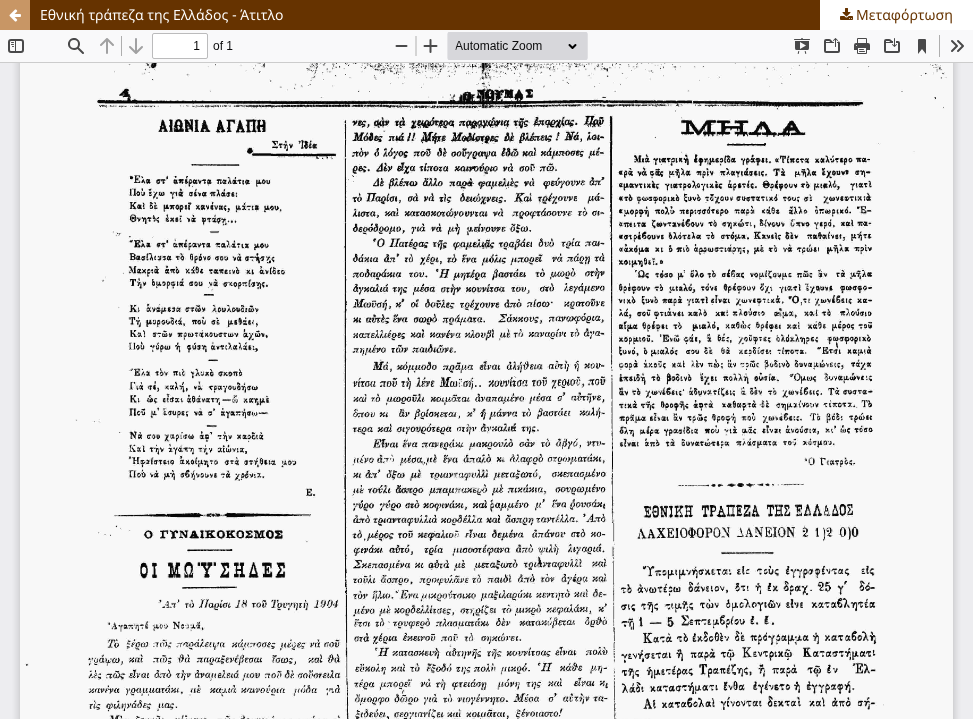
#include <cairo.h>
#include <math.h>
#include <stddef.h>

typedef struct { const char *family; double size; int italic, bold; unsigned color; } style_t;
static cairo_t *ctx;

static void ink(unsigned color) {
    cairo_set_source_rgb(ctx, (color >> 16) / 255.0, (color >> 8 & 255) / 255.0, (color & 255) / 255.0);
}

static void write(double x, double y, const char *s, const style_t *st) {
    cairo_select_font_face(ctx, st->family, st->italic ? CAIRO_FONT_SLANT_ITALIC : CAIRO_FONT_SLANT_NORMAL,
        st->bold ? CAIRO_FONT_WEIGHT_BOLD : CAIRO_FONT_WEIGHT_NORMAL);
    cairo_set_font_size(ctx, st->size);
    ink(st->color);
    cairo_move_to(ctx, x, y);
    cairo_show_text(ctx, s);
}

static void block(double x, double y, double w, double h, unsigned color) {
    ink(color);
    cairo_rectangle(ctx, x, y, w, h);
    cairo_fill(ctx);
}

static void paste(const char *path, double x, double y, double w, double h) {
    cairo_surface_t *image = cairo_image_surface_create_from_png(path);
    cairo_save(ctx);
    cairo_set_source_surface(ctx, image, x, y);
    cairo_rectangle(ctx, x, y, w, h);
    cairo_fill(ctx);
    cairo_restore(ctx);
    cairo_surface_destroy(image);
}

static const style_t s1 = {"Noto Sans", 14, 0, 0, 0xffffff};
static const style_t s2 = {"Noto Sans", 14, 0, 0, 0x663300};

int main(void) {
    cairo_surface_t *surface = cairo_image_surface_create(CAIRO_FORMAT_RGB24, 973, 719);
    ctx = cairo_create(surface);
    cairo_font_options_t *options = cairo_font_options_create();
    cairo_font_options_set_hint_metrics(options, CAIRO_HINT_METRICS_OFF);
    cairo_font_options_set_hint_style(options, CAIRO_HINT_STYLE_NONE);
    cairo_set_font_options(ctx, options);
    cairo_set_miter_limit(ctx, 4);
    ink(0xffffff);
    cairo_paint(ctx);
    block(30, 0, 790, 30, 0x663300);
    block(0, 0, 30, 30, 0xc89665);
    paste("pic1.png", 9, 9, 12, 13);
    write(40, 20, "Εθνική τράπεζα της Ελλάδος - Άτιτλο", &s1);
    paste("pic2.png", 840, 8, 13, 12);
    write(856, 20, "Μεταφόρτωση", &s2);
    paste("pic3.png", 0, 30, 973, 689);
    cairo_surface_write_to_png(surface, "screenshot.png");
    cairo_font_options_destroy(options);
    cairo_destroy(ctx);
    cairo_surface_destroy(surface);
    return 0;
}
